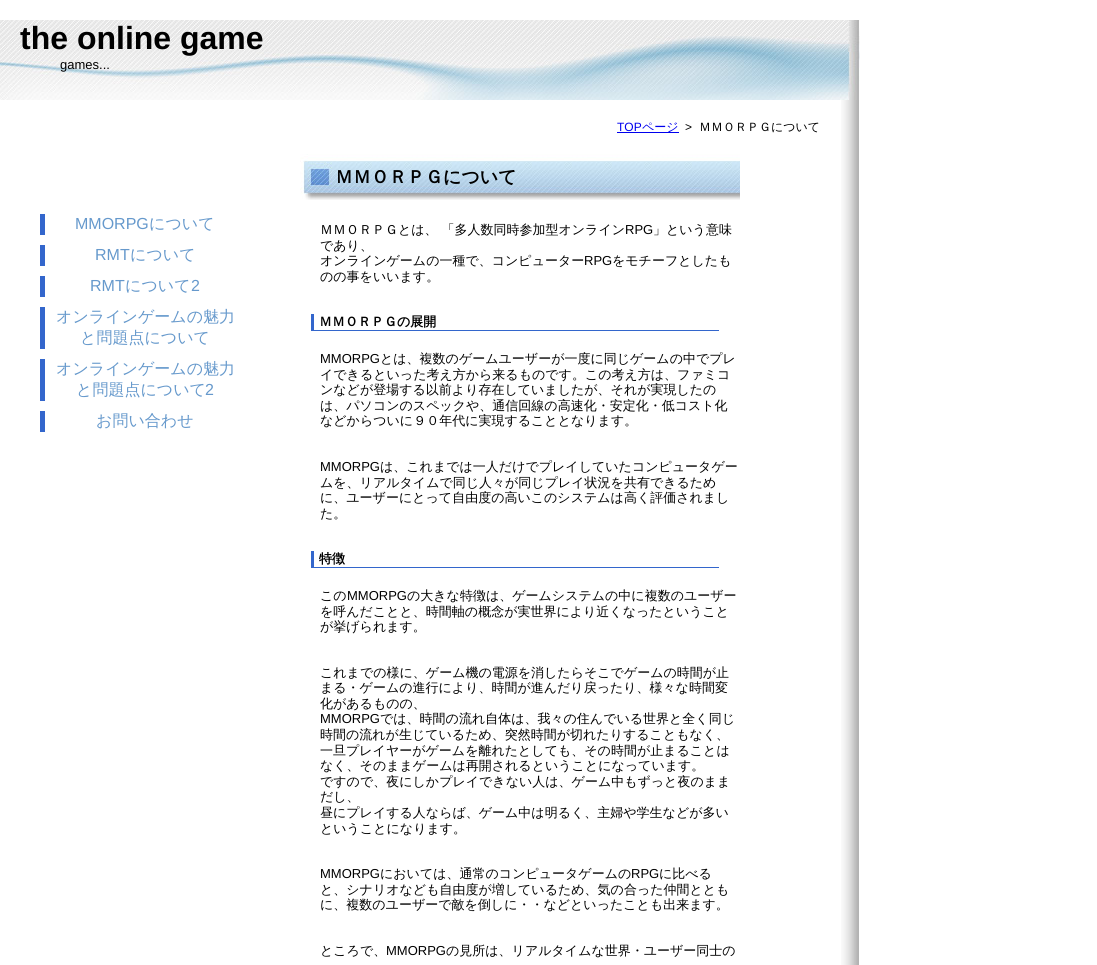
#include <cairo.h>
#include <math.h>
#include <stddef.h>

typedef struct { const char *family; double size; int italic, bold; unsigned color; } style_t;
static cairo_t *ctx;

static void ink(unsigned color) {
    cairo_set_source_rgb(ctx, (color >> 16) / 255.0, (color >> 8 & 255) / 255.0, (color & 255) / 255.0);
}

static void write(double x, double y, const char *s, const style_t *st) {
    cairo_select_font_face(ctx, st->family, st->italic ? CAIRO_FONT_SLANT_ITALIC : CAIRO_FONT_SLANT_NORMAL,
        st->bold ? CAIRO_FONT_WEIGHT_BOLD : CAIRO_FONT_WEIGHT_NORMAL);
    cairo_set_font_size(ctx, st->size);
    ink(st->color);
    cairo_move_to(ctx, x, y);
    cairo_show_text(ctx, s);
}

static void block(double x, double y, double w, double h, unsigned color) {
    ink(color);
    cairo_rectangle(ctx, x, y, w, h);
    cairo_fill(ctx);
}

static void paste(const char *path, double x, double y, double w, double h) {
    cairo_surface_t *image = cairo_image_surface_create_from_png(path);
    cairo_save(ctx);
    cairo_set_source_surface(ctx, image, x, y);
    cairo_rectangle(ctx, x, y, w, h);
    cairo_fill(ctx);
    cairo_restore(ctx);
    cairo_surface_destroy(image);
}

static const style_t s1 = {"Liberation Sans", 32, 0, 1, 0x000000};
static const style_t s2 = {"Liberation Sans", 13, 0, 0, 0x000000};
static const style_t s3 = {"Liberation Sans", 12, 0, 0, 0x0000ee};
static const style_t s4 = {"WenQuanYi Zen Hei Medium", 12, 0, 0, 0x0000ee};
static const style_t s5 = {"Liberation Sans", 12, 0, 0, 0x000000};
static const style_t s6 = {"WenQuanYi Zen Hei Medium", 12, 0, 0, 0x000000};
static const style_t s7 = {"Liberation Sans", 16, 0, 0, 0x6699cc};
static const style_t s8 = {"WenQuanYi Zen Hei Medium", 16, 0, 0, 0x6699cc};
static const style_t s9 = {"WenQuanYi Zen Hei", 18, 0, 1, 0x000000};
static const style_t s10 = {"WenQuanYi Zen Hei Medium", 13, 0, 0, 0x000000};
static const style_t s11 = {"WenQuanYi Zen Hei", 13, 0, 1, 0x000000};

int main(void) {
    cairo_surface_t *surface = cairo_image_surface_create(CAIRO_FORMAT_RGB24, 1097, 965);
    ctx = cairo_create(surface);
    cairo_font_options_t *options = cairo_font_options_create();
    cairo_font_options_set_hint_metrics(options, CAIRO_HINT_METRICS_OFF);
    cairo_font_options_set_hint_style(options, CAIRO_HINT_STYLE_NONE);
    cairo_set_font_options(ctx, options);
    cairo_set_miter_limit(ctx, 4);
    ink(0xffffff);
    cairo_paint(ctx);
    paste("pic1.png", 841, 100, 18, 865);
    paste("pic2.png", 0, 20, 860, 80);
    write(20, 49, "the online game", &s1);
    write(60, 69, "games...", &s2);
    write(617, 131, "TOP", &s3);
    block(617, 132, 62, 1, 0x0000ee);
    write(642, 131, "ページ", &s4);
    write(685, 131, ">", &s5);
    write(699, 131, "ＭＭＯＲＰＧについて", &s6);
    block(40, 214, 5, 21, 0x3366cc);
    write(75, 229, "MMORPG", &s7);
    write(149, 229, "について", &s8);
    block(40, 245, 5, 21, 0x3366cc);
    write(95, 260, "RMT", &s7);
    write(130, 260, "について", &s8);
    block(40, 276, 5, 21, 0x3366cc);
    write(90, 291, "RMT", &s7);
    write(125, 291, "について", &s8);
    write(191, 291, "2", &s7);
    block(40, 307, 5, 42, 0x3366cc);
    write(56, 322, "オンラインゲームの魅力", &s8);
    write(80, 343, "と問題点について", &s8);
    block(40, 359, 5, 42, 0x3366cc);
    write(56, 374, "オンラインゲームの魅力", &s8);
    write(76, 395, "と問題点について", &s8);
    write(205, 395, "2", &s7);
    block(40, 411, 5, 21, 0x3366cc);
    write(96, 426, "お問い合わせ", &s8);
    paste("pic3.png", 300, 154, 440, 46);
    write(335, 183, "ＭＭＯＲＰＧについて", &s9);
    write(320, 234, "ＭＭＯＲＰＧとは、 「多人数同時参加型オンライン", &s10);
    write(625, 234, "RPG", &s2);
    write(653, 234, "」という意味", &s10);
    write(320, 250, "であり、", &s10);
    write(320, 265, "オンラインゲームの一種で、コンピューター", &s10);
    write(584, 265, "RPG", &s2);
    write(612, 265, "をモチーフとしたも", &s10);
    write(320, 281, "のの事をいいます。", &s10);
    block(311, 330, 408, 1, 0x3366cc);
    block(311, 314, 3, 17, 0x3366cc);
    write(319, 326, "ＭＭＯＲＰＧの展開", &s11);
    write(320, 363, "MMORPG", &s2);
    write(380, 363, "とは、複数のゲームユーザーが一度に同じゲームの中でプレ", &s10);
    write(320, 379, "イできるといった考え方から来るものです。この考え方は、ファミコ", &s10);
    write(320, 394, "ンなどが登場する以前より存在していましたが、それが実現したの", &s10);
    write(320, 410, "は、パソコンのスペックや、通信回線の高速化・安定化・低コスト化", &s10);
    write(320, 425, "などからついに９０年代に実現することとなります。", &s10);
    write(320, 471, "MMORPG", &s2);
    write(380, 471, "は、これまでは一人だけでプレイしていたコンピュータゲー", &s10);
    write(320, 487, "ムを、リアルタイムで同じ人々が同じプレイ状況を共有できるため", &s10);
    write(320, 502, "に、ユーザーにとって自由度の高いこのシステムは高く評価されまし", &s10);
    write(320, 518, "た。", &s10);
    block(311, 567, 408, 1, 0x3366cc);
    block(311, 551, 3, 17, 0x3366cc);
    write(319, 563, "特徴", &s11);
    write(320, 600, "この", &s10);
    write(347, 600, "MMORPG", &s2);
    write(407, 600, "の大きな特徴は、ゲームシステムの中に複数のユーザー", &s10);
    write(320, 616, "を呼んだことと、時間軸の概念が実世界により近くなったということ", &s10);
    write(320, 631, "が挙げられます。", &s10);
    write(320, 677, "これまでの様に、ゲーム機の電源を消したらそこでゲームの時間が止", &s10);
    write(320, 692, "まる・ゲームの進行により、時間が進んだり戻ったり、様々な時間変", &s10);
    write(320, 708, "化があるものの、", &s10);
    write(320, 723, "MMORPG", &s2);
    write(380, 723, "では、時間の流れ自体は、我々の住んでいる世界と全く同じ", &s10);
    write(320, 739, "時間の流れが生じているため、突然時間が切れたりすることもなく、", &s10);
    write(320, 755, "一旦プレイヤーがゲームを離れたとしても、その時間が止まることは", &s10);
    write(320, 770, "なく、そのままゲームは再開されるということになっています。", &s10);
    write(320, 786, "ですので、夜にしかプレイできない人は、ゲーム中もずっと夜のまま", &s10);
    write(320, 801, "だし、", &s10);
    write(320, 817, "昼にプレイする人ならば、ゲーム中は明るく、主婦や学生などが多い", &s10);
    write(320, 833, "ということになります。", &s10);
    write(320, 878, "MMORPG", &s2);
    write(380, 878, "においては、通常のコンピュータゲームの", &s10);
    write(631, 878, "RPG", &s2);
    write(659, 878, "に比べる", &s10);
    write(320, 894, "と、シナリオなども自由度が増しているため、気の合った仲間ととも", &s10);
    write(320, 909, "に、複数のユーザーで敵を倒しに・・などといったことも出来ます。", &s10);
    write(320, 955, "ところで、", &s10);
    write(386, 955, "MMORPG", &s2);
    write(446, 955, "の見所は、リアルタイムな世界・ユーザー同士の", &s10);
    cairo_surface_write_to_png(surface, "screenshot.png");
    cairo_font_options_destroy(options);
    cairo_destroy(ctx);
    cairo_surface_destroy(surface);
    return 0;
}
